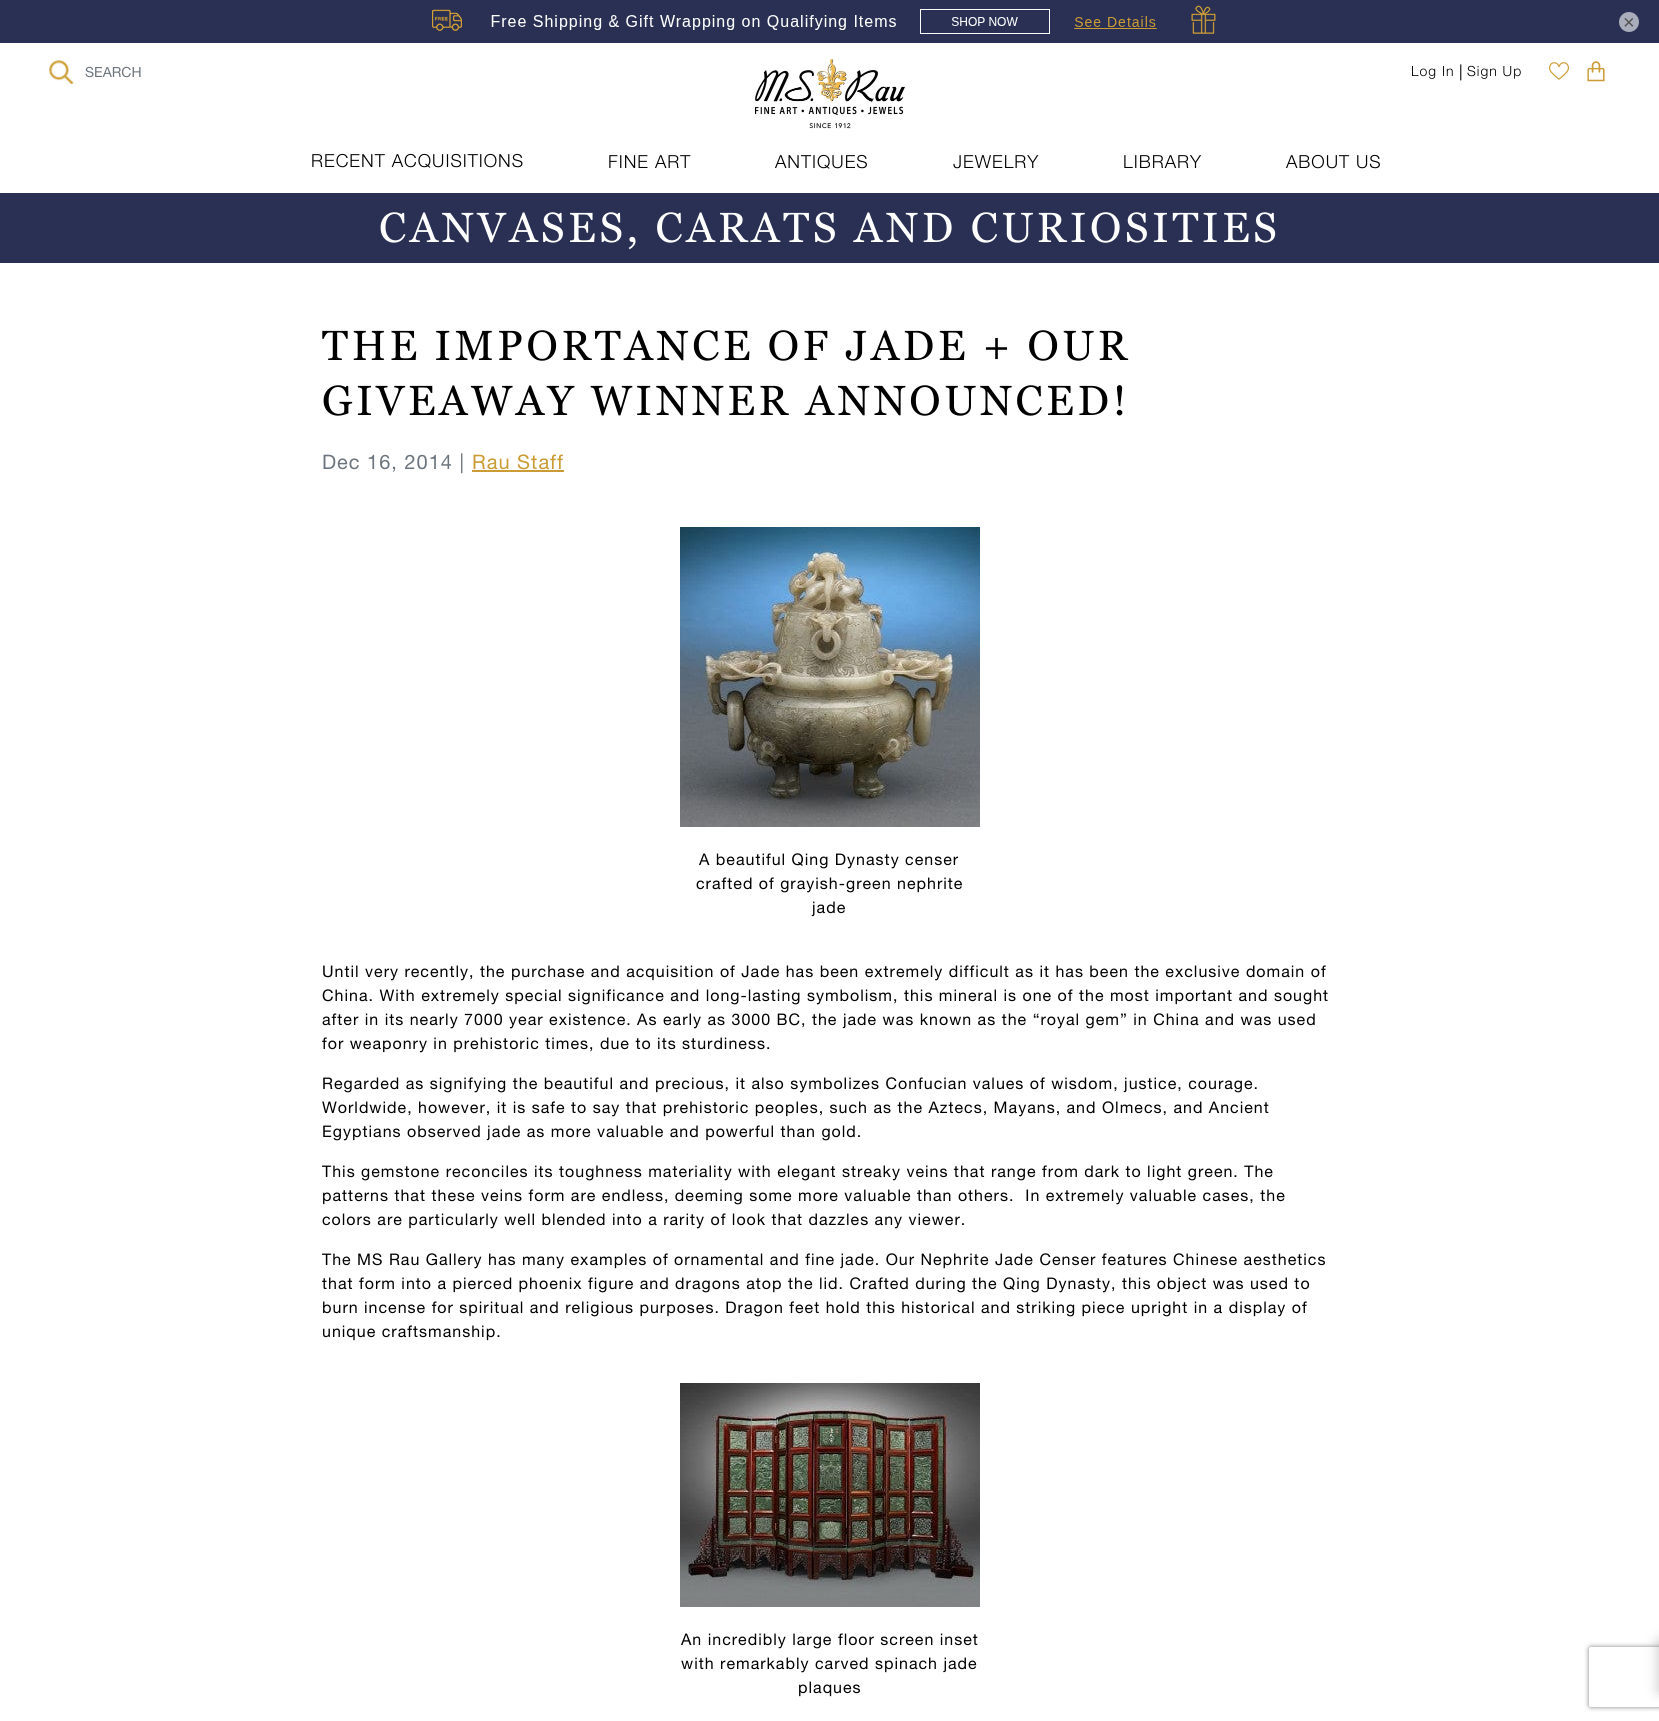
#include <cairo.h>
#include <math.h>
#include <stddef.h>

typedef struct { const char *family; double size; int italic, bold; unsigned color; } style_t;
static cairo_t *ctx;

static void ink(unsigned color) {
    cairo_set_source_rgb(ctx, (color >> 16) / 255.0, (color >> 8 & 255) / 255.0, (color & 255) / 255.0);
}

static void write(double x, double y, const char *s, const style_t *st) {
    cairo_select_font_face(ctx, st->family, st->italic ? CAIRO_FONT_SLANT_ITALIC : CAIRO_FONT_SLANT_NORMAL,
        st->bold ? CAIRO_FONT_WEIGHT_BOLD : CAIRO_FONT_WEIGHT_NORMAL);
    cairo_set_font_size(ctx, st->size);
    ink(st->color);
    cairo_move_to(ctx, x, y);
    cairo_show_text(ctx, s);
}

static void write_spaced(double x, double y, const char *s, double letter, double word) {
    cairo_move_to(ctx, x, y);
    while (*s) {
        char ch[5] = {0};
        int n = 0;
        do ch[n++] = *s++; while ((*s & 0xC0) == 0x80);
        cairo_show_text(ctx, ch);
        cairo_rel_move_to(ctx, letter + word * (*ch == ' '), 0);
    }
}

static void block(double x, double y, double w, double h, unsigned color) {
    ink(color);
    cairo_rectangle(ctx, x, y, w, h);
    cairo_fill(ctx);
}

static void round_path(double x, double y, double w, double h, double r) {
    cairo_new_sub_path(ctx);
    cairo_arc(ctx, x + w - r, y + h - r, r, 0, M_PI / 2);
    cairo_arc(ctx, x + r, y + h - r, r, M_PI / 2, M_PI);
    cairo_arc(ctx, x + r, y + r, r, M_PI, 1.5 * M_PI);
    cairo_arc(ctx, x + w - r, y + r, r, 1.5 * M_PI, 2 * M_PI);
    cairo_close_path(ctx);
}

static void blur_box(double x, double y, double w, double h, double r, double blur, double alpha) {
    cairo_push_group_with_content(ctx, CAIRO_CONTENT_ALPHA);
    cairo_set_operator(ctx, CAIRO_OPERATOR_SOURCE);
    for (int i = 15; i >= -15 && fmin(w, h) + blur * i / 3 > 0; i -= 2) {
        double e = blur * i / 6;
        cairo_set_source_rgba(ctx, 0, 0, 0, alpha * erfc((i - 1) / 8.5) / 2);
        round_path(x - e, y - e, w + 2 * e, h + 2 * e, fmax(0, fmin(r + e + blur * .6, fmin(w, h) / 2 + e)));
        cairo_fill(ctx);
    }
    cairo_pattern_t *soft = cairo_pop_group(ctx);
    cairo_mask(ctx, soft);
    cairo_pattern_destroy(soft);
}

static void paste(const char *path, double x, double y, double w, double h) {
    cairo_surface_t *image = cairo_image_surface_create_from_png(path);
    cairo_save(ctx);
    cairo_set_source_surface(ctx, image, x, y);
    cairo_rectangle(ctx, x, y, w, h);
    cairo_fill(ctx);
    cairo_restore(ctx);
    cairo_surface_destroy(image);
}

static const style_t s1 = {"Liberation Sans", 20, 0, 0, 0x525151};
static const style_t s2 = {"Helvetica Neue", 14, 0, 0, 0x6c757d};

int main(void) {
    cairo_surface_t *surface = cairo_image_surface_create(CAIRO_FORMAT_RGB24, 1659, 1721);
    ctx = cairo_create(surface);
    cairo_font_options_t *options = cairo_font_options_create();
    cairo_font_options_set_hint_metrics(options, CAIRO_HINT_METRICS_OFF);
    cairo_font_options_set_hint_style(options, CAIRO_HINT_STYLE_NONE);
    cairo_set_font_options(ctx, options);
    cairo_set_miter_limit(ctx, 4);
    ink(0xffffff);
    cairo_paint(ctx);
    paste("pic1.png", 0, 0, 1659, 43);
    ink(0xa9acba);
    cairo_arc(ctx, 1629, 22, 10, 0, 2 * M_PI);
    cairo_fill(ctx);
    write(1623, 29, "×", &s1);
    paste("pic2.png", 49, 60, 25, 24);
    write(85, 77, "SEARCH", &s2);
    paste("pic3.png", 755, 59, 150, 70);
    cairo_select_font_face(ctx, "Helvetica Neue Light", CAIRO_FONT_SLANT_NORMAL, CAIRO_FONT_WEIGHT_NORMAL);
    ink(0x000000);
    write_spaced(1411, 76, "Log In", 1, 0);
    cairo_select_font_face(ctx, "Helvetica Neue", CAIRO_FONT_SLANT_NORMAL, CAIRO_FONT_WEIGHT_NORMAL);
    cairo_set_font_size(ctx, 16);
    write_spaced(1459, 77, "|", 1, 0);
    cairo_select_font_face(ctx, "Helvetica Neue Light", CAIRO_FONT_SLANT_NORMAL, CAIRO_FONT_WEIGHT_NORMAL);
    cairo_set_font_size(ctx, 14);
    write_spaced(1467, 76, "Sign Up", 1, 0);
    paste("pic4.png", 1549, 62, 20, 18);
    paste("pic5.png", 1587, 61, 18, 21);
    cairo_set_font_size(ctx, 18);
    write_spaced(311, 167, "RECENT ACQUISITIONS", 1, 0);
    write_spaced(608, 168, "FINE ART", 1, 0);
    write_spaced(775, 168, "ANTIQUES", 1, 0);
    write_spaced(953, 168, "JEWELRY", 1, 0);
    write_spaced(1123, 168, "LIBRARY", 1, 0);
    write_spaced(1286, 168, "ABOUT US", 1, 0);
    block(0, 193, 1659, 70, 0x293053);
    cairo_select_font_face(ctx, "Georgia", CAIRO_FONT_SLANT_NORMAL, CAIRO_FONT_WEIGHT_NORMAL);
    cairo_set_font_size(ctx, 42);
    ink(0xffffff);
    write_spaced(379, 242, "CANVASES, CARATS AND CURIOSITIES", 3.7, 0);
    ink(0x000000);
    write_spaced(322, 360, "THE IMPORTANCE OF JADE + OUR", 3.7, 0);
    write_spaced(322, 415, "GIVEAWAY WINNER ANNOUNCED!", 3.7, 0);
    cairo_select_font_face(ctx, "Helvetica Neue", CAIRO_FONT_SLANT_NORMAL, CAIRO_FONT_WEIGHT_NORMAL);
    cairo_set_font_size(ctx, 20);
    ink(0x6c757d);
    write_spaced(322, 469, "Dec 16, 2014 |", 1, 0);
    ink(0xcb9b36);
    write_spaced(472, 469, "Rau Staff", 1, 0);
    block(472, 470, 92, 2, 0xcb9b36);
    paste("pic6.png", 680, 527, 300, 300);
    cairo_set_font_size(ctx, 16);
    ink(0x000000);
    write_spaced(699, 865, "A beautiful Qing Dynasty censer", 1, 0);
    write_spaced(696, 889, "crafted of grayish-green nephrite", 1, 0);
    write_spaced(812, 913, "jade", 1, 0);
    write_spaced(322, 977, "Until very recently, the purchase and acquisition of Jade has been extremely difficult as it has been the exclusive domain of", 1, 0);
    write_spaced(322, 1001, "China. With extremely special significance and long-lasting symbolism, this mineral is one of the most important and sought", 1, 0);
    write_spaced(322, 1025, "after in its nearly 7000 year existence. As early as 3000 BC, the jade was known as the “royal gem” in China and was used", 1, 0);
    write_spaced(322, 1049, "for weaponry in prehistoric times, due to its sturdiness.", 1, 0);
    write_spaced(322, 1089, "Regarded as signifying the beautiful and precious, it also symbolizes Confucian values of wisdom, justice, courage.", 1, 0);
    write_spaced(322, 1113, "Worldwide, however, it is safe to say that prehistoric peoples, such as the Aztecs, Mayans, and Olmecs, and Ancient", 1, 0);
    write_spaced(322, 1137, "Egyptians observed jade as more valuable and powerful than gold.", 1, 0);
    write_spaced(322, 1177, "This gemstone reconciles its toughness materiality with elegant streaky veins that range from dark to light green. The", 1, 0);
    write_spaced(322, 1201, "patterns that these veins form are endless, deeming some more valuable than others.  In extremely valuable cases, the", 1, 0);
    write_spaced(322, 1225, "colors are particularly well blended into a rarity of look that dazzles any viewer.", 1, 0);
    write_spaced(322, 1265, "The MS Rau Gallery has many examples of ornamental and fine jade. Our Nephrite Jade Censer features Chinese aesthetics", 1, 0);
    write_spaced(322, 1289, "that form into a pierced phoenix figure and dragons atop the lid. Crafted during the Qing Dynasty, this object was used to", 1, 0);
    write_spaced(322, 1313, "burn incense for spiritual and religious purposes. Dragon feet hold this historical and striking piece upright in a display of", 1, 0);
    write_spaced(322, 1337, "unique craftsmanship.", 1, 0);
    paste("pic7.png", 680, 1383, 300, 224);
    write_spaced(681, 1645, "An incredibly large floor screen inset", 1, 0);
    write_spaced(681, 1669, "with remarkably carved spinach jade", 1, 0);
    write_spaced(798, 1693, "plaques", 1, 0);
    ink(0x757575);
    blur_box(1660, 1641, 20, 50, 0, 7, 0.5);
    cairo_save(ctx);
    cairo_set_fill_rule(ctx, CAIRO_FILL_RULE_EVEN_ODD);
    cairo_new_path(ctx);
    cairo_move_to(ctx, 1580, 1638);
    cairo_line_to(ctx, 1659, 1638);
    cairo_line_to(ctx, 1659, 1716);
    cairo_line_to(ctx, 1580, 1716);
    cairo_close_path(ctx);
    cairo_move_to(ctx, 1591, 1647);
    cairo_line_to(ctx, 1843, 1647);
    cairo_curve_to(ctx, 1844, 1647, 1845, 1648, 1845, 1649);
    cairo_line_to(ctx, 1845, 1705);
    cairo_curve_to(ctx, 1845, 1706, 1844, 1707, 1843, 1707);
    cairo_line_to(ctx, 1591, 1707);
    cairo_curve_to(ctx, 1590, 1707, 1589, 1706, 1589, 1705);
    cairo_line_to(ctx, 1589, 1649);
    cairo_curve_to(ctx, 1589, 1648, 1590, 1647, 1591, 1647);
    cairo_close_path(ctx);
    cairo_clip(ctx);
    ink(0x808080);
    blur_box(1589, 1647, 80, 60, 2, 2.5, 1);
    cairo_restore(ctx);
    cairo_surface_write_to_png(surface, "screenshot.png");
    cairo_font_options_destroy(options);
    cairo_destroy(ctx);
    cairo_surface_destroy(surface);
    return 0;
}
